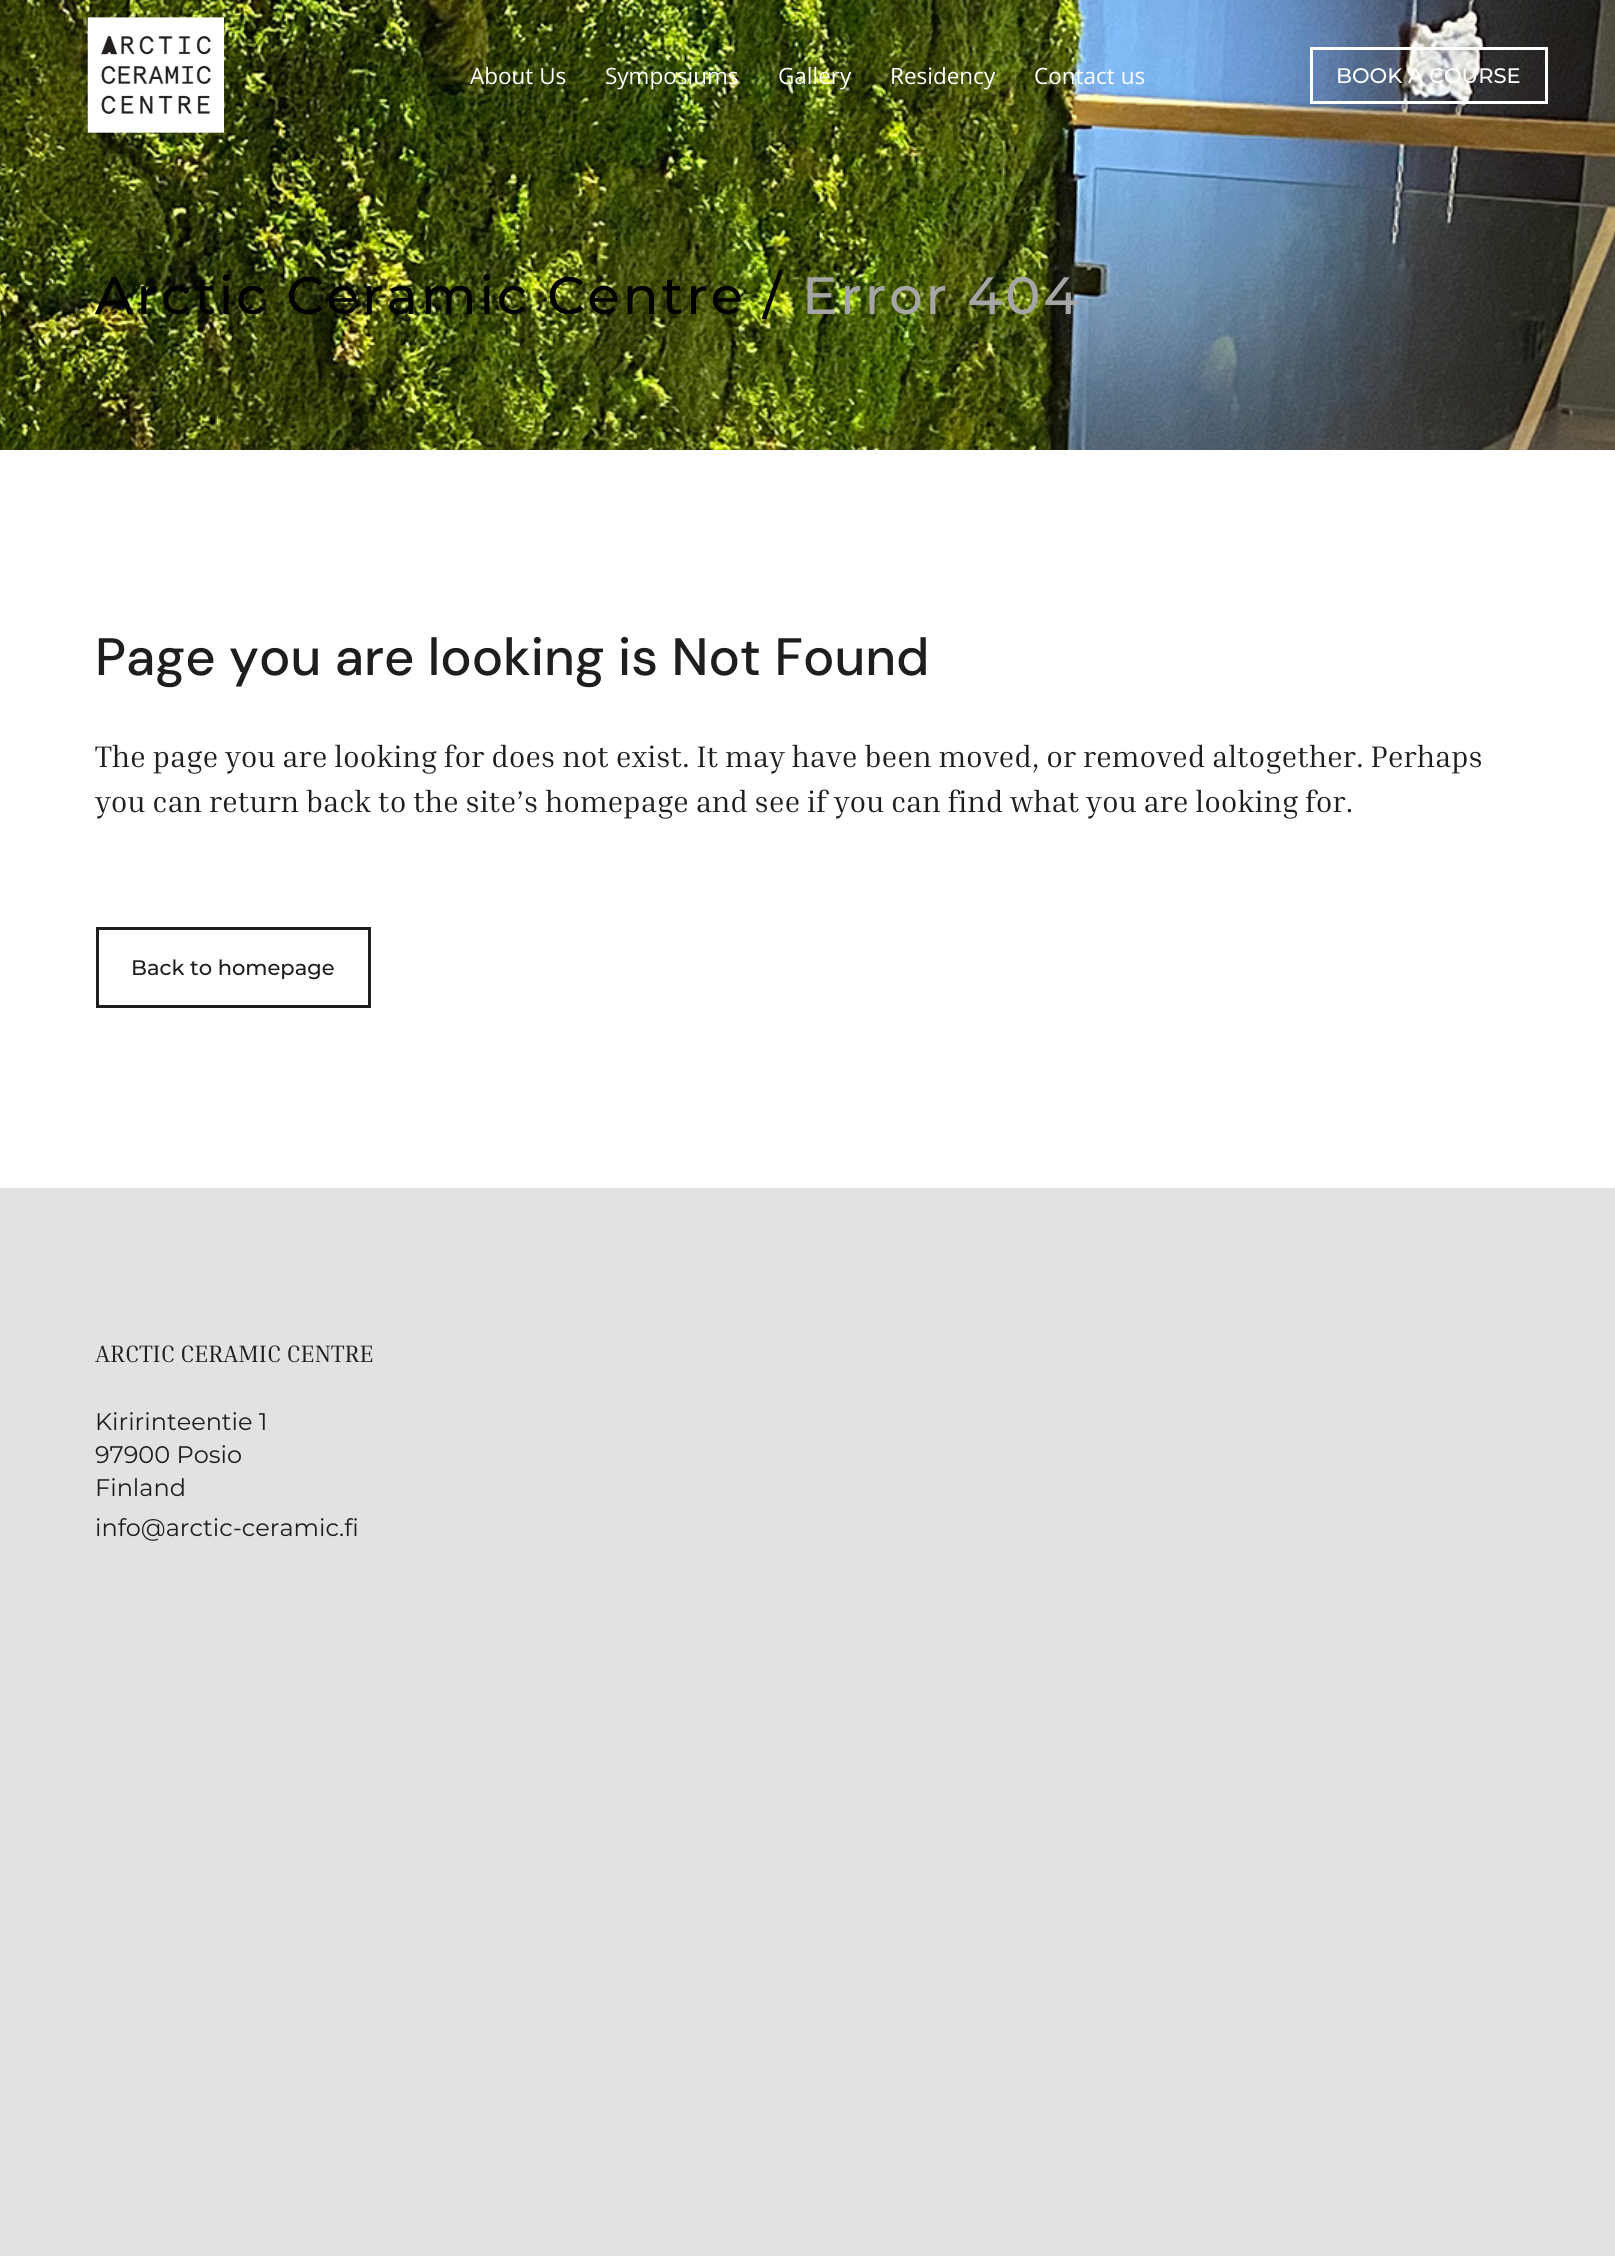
#include <cairo.h>
#include <math.h>
#include <stddef.h>

typedef struct { const char *family; double size; int italic, bold; unsigned color; } style_t;
static cairo_t *ctx;

static void ink(unsigned color) {
    cairo_set_source_rgb(ctx, (color >> 16) / 255.0, (color >> 8 & 255) / 255.0, (color & 255) / 255.0);
}

static void write(double x, double y, const char *s, const style_t *st) {
    cairo_select_font_face(ctx, st->family, st->italic ? CAIRO_FONT_SLANT_ITALIC : CAIRO_FONT_SLANT_NORMAL,
        st->bold ? CAIRO_FONT_WEIGHT_BOLD : CAIRO_FONT_WEIGHT_NORMAL);
    cairo_set_font_size(ctx, st->size);
    ink(st->color);
    cairo_move_to(ctx, x, y);
    cairo_show_text(ctx, s);
}

static void write_spaced(double x, double y, const char *s, double letter, double word) {
    cairo_move_to(ctx, x, y);
    while (*s) {
        char ch[5] = {0};
        int n = 0;
        do ch[n++] = *s++; while ((*s & 0xC0) == 0x80);
        cairo_show_text(ctx, ch);
        cairo_rel_move_to(ctx, letter + word * (*ch == ' '), 0);
    }
}

static void block(double x, double y, double w, double h, unsigned color) {
    ink(color);
    cairo_rectangle(ctx, x, y, w, h);
    cairo_fill(ctx);
}

static void paste(const char *path, double x, double y, double w, double h) {
    cairo_surface_t *image = cairo_image_surface_create_from_png(path);
    cairo_save(ctx);
    cairo_set_source_surface(ctx, image, x, y);
    cairo_rectangle(ctx, x, y, w, h);
    cairo_fill(ctx);
    cairo_restore(ctx);
    cairo_surface_destroy(image);
}

static const style_t s1 = {"Open Sans", 22.5, 0, 0, 0xffffff};
static const style_t s2 = {"Montserrat Medium", 21, 0, 0, 0xffffff};
static const style_t s3 = {"DM Sans Medium", 52.5, 0, 0, 0x1e1e1e};
static const style_t s4 = {"Inria Serif", 30, 0, 0, 0x1e1e1e};
static const style_t s5 = {"Montserrat Medium", 21, 0, 0, 0x1e1e1e};
static const style_t s6 = {"Inria Serif", 24, 0, 0, 0x1e1e1e};
static const style_t s7 = {"Montserrat", 24, 0, 0, 0x1e1e1e};

int main(void) {
    cairo_surface_t *surface = cairo_image_surface_create(CAIRO_FORMAT_RGB24, 1615, 2256);
    ctx = cairo_create(surface);
    cairo_font_options_t *options = cairo_font_options_create();
    cairo_font_options_set_hint_metrics(options, CAIRO_HINT_METRICS_OFF);
    cairo_font_options_set_hint_style(options, CAIRO_HINT_STYLE_NONE);
    cairo_set_font_options(ctx, options);
    cairo_set_miter_limit(ctx, 4);
    ink(0xffffff);
    cairo_paint(ctx);
    paste("pic2.png", 0, 0, 1615, 450);
    paste("pic1.png", 87, 17, 137, 116);
    write(470, 84, "About Us", &s1);
    write(605, 84, "Symposiums", &s1);
    write(778, 84, "Gallery", &s1);
    write(890, 84, "Residency", &s1);
    write(1034, 84, "Contact us", &s1);
    cairo_rectangle(ctx, 1311.5, 48.5, 235, 54);
    cairo_set_line_width(ctx, 3);
    cairo_stroke(ctx);
    write(1336, 83, "BOOK A COURSE", &s2);
    cairo_set_font_size(ctx, 52.5);
    ink(0x000000);
    write_spaced(95, 314, "Arctic Ceramic Centre /", 3, 0);
    ink(0xa6a6a6);
    write_spaced(802, 314, "Error 404", 3, 0);
    write(95, 675, "Page you are looking is Not Found", &s3);
    write(95, 767, "The page you are looking for does not exist. It may have been moved, or removed altogether. Perhaps", &s4);
    write(95, 812, "you can return back to the site’s homepage and see if you can find what you are looking for.", &s4);
    cairo_rectangle(ctx, 97.5, 928.5, 272, 78);
    cairo_stroke(ctx);
    write(131, 975, "Back to homepage", &s5);
    block(0, 1188, 1615, 1068, 0xe2e2e2);
    write(95, 1362, "ARCTIC CERAMIC CENTRE", &s6);
    write(95, 1430, "Kiririnteentie 1", &s7);
    write(95, 1463, "97900 Posio", &s7);
    write(95, 1496, "Finland", &s7);
    write(95, 1536, "info@arctic-ceramic.fi", &s7);
    cairo_surface_write_to_png(surface, "screenshot.png");
    cairo_font_options_destroy(options);
    cairo_destroy(ctx);
    cairo_surface_destroy(surface);
    return 0;
}
